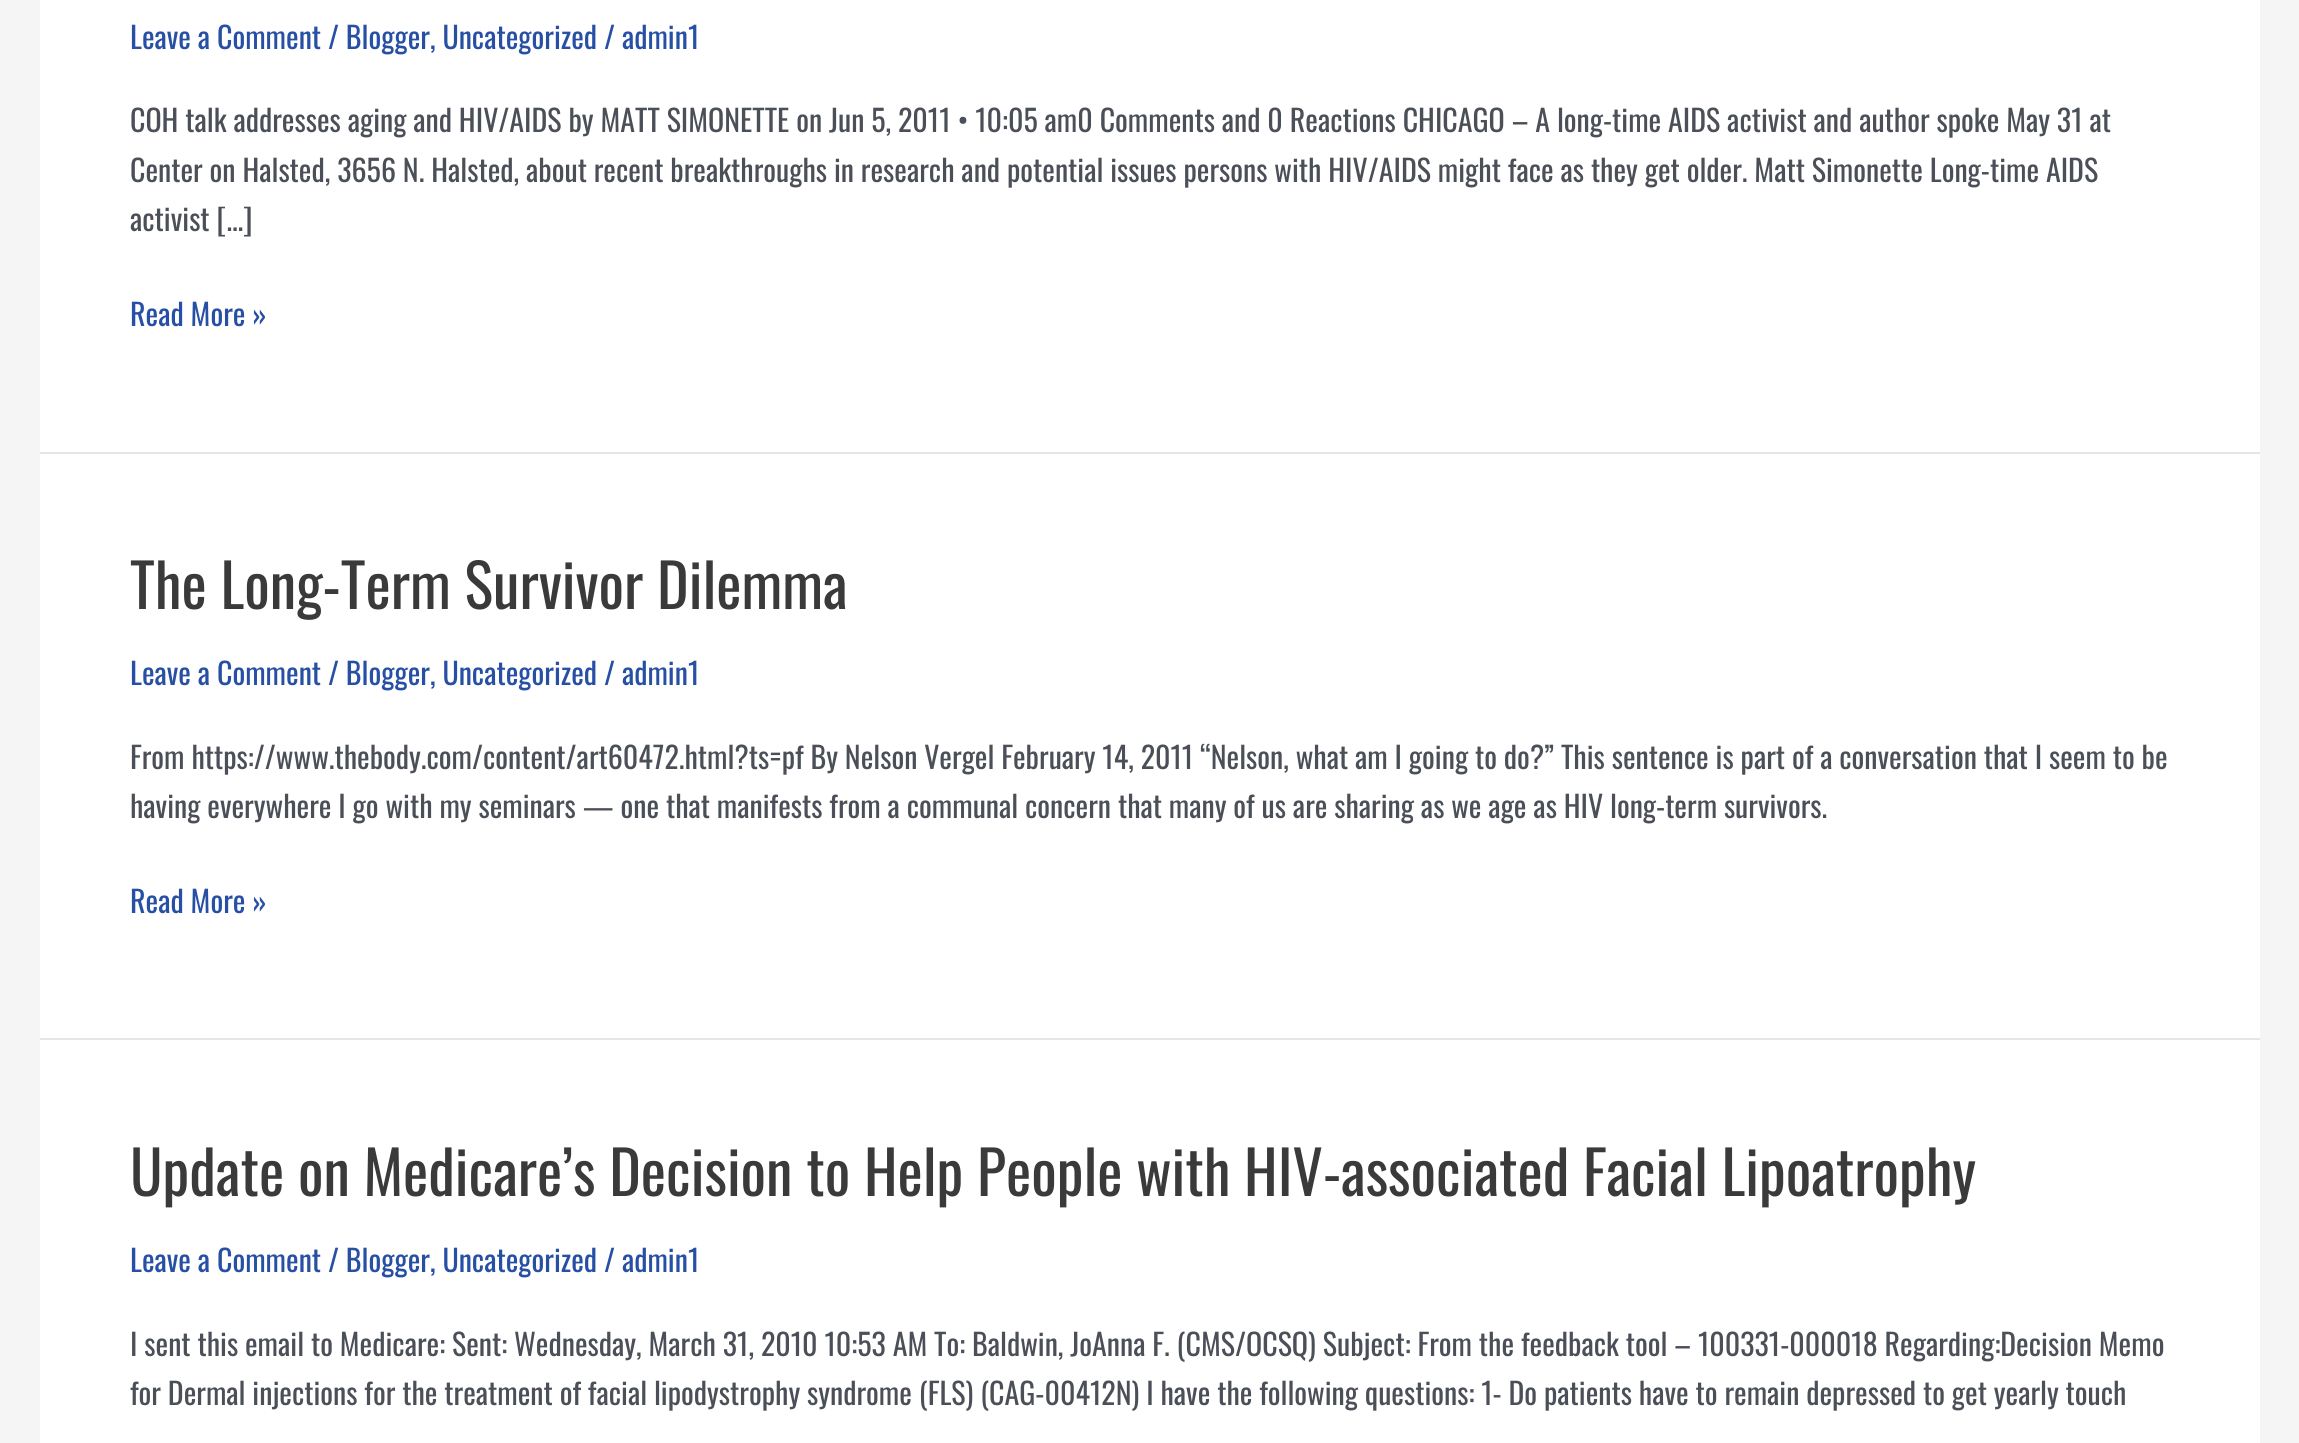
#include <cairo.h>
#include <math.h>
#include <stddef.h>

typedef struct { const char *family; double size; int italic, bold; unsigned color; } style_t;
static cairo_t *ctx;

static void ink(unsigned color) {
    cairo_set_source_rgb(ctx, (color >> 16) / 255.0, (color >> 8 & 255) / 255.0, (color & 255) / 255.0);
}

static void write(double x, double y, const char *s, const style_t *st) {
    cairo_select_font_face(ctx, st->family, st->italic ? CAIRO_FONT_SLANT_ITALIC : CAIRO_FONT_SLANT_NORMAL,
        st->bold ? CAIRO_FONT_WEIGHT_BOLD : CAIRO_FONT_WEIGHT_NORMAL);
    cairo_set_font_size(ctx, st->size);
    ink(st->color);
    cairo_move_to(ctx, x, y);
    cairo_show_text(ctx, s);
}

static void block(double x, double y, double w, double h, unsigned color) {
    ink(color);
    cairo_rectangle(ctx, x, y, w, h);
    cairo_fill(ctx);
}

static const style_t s1 = {"Oswald", 30, 0, 0, 0x2750a5};
static const style_t s2 = {"Oswald", 30, 0, 0, 0x4b4f58};
static const style_t s3 = {"Oswald", 60, 0, 0, 0x3a3a3a};

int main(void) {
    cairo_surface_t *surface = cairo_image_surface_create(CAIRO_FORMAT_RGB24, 2299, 1443);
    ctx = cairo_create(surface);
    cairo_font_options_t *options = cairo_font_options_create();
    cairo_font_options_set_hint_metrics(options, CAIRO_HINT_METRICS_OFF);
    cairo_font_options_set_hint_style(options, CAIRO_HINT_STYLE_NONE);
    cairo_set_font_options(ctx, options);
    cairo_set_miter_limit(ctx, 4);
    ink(0xf5f5f5);
    cairo_paint(ctx);
    block(40, 0, 2220, 452, 0xffffff);
    block(40, 452, 2220, 2, 0xe5e5e5);
    write(130, 49, "Leave a Comment / Blogger, Uncategorized / admin1", &s1);
    write(130, 132, "COH talk addresses aging and HIV/AIDS by MATT SIMONETTE on Jun 5, 2011 • 10:05 am0 Comments and 0 Reactions CHICAGO – A long-time AIDS activist and author spoke May 31 at", &s2);
    write(130, 182, "Center on Halsted, 3656 N. Halsted, about recent breakthroughs in research and potential issues persons with HIV/AIDS might face as they get older. Matt Simonette Long-time AIDS", &s2);
    write(130, 231, "activist […]", &s2);
    write(130, 326, "Read More »", &s1);
    block(40, 454, 2220, 584, 0xffffff);
    block(40, 1038, 2220, 2, 0xe5e5e5);
    write(130, 609, "The Long-Term Survivor Dilemma", &s3);
    write(130, 685, "Leave a Comment / Blogger, Uncategorized / admin1", &s1);
    write(130, 769, "From https://www.thebody.com/content/art60472.html?ts=pf By Nelson Vergel February 14, 2011 “Nelson, what am I going to do?” This sentence is part of a conversation that I seem to be", &s2);
    write(130, 818, "having everywhere I go with my seminars — one that manifests from a communal concern that many of us are sharing as we age as HIV long-term survivors.", &s2);
    write(130, 913, "Read More »", &s1);
    block(40, 1040, 2220, 403, 0xffffff);
    write(130, 1196, "Update on Medicare’s Decision to Help People with HIV-associated Facial Lipoatrophy", &s3);
    write(130, 1272, "Leave a Comment / Blogger, Uncategorized / admin1", &s1);
    write(130, 1356, "I sent this email to Medicare: Sent: Wednesday, March 31, 2010 10:53 AM To: Baldwin, JoAnna F. (CMS/OCSQ) Subject: From the feedback tool – 100331-000018 Regarding:Decision Memo", &s2);
    write(130, 1405, "for Dermal injections for the treatment of facial lipodystrophy syndrome (FLS) (CAG-00412N) I have the following questions: 1- Do patients have to remain depressed to get yearly touch", &s2);
    cairo_surface_write_to_png(surface, "screenshot.png");
    cairo_font_options_destroy(options);
    cairo_destroy(ctx);
    cairo_surface_destroy(surface);
    return 0;
}
